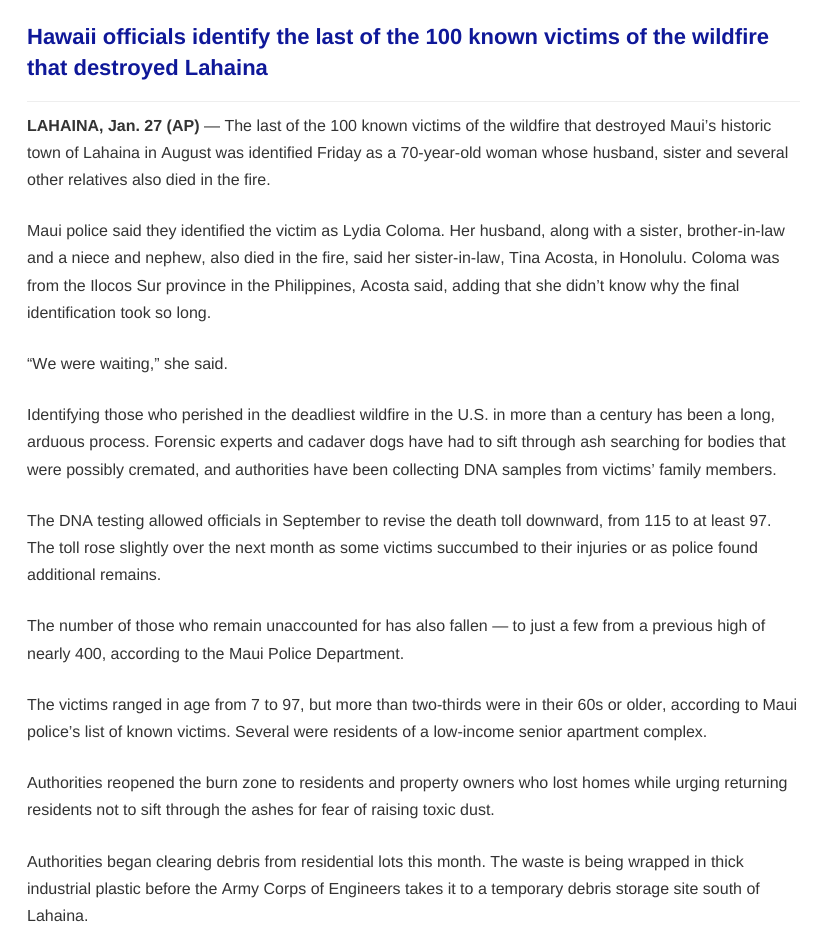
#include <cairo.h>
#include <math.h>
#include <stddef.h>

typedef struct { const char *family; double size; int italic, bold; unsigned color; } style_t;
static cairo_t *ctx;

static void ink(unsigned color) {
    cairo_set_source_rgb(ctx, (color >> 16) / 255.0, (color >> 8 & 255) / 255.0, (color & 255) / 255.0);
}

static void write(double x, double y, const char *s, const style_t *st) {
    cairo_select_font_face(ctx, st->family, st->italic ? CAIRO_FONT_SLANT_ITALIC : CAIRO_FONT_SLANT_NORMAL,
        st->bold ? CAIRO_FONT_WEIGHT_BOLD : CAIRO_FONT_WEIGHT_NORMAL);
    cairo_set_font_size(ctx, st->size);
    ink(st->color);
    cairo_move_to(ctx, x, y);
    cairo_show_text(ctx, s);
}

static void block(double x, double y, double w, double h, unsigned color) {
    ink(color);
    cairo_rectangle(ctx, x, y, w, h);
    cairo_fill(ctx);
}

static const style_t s1 = {"Liberation Sans", 22, 0, 1, 0x0f1899};
static const style_t s2 = {"Liberation Sans", 16, 0, 1, 0x333333};
static const style_t s3 = {"Liberation Sans", 16, 0, 0, 0x333333};

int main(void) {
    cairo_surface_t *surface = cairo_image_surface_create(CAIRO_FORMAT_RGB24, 827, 940);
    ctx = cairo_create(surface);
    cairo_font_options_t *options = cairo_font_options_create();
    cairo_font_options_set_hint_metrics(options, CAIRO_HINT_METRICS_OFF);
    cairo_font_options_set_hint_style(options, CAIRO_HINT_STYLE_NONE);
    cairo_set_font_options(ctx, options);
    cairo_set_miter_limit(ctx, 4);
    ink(0xffffff);
    cairo_paint(ctx);
    block(27, 101, 773, 1, 0xeeeeee);
    write(27, 44, "Hawaii officials identify the last of the 100 known victims of the wildfire", &s1);
    write(27, 75, "that destroyed Lahaina", &s1);
    write(27, 131, "LAHAINA, Jan. 27 (AP)", &s2);
    write(204, 131, "— The last of the 100 known victims of the wildfire that destroyed Maui’s historic", &s3);
    write(27, 158, "town of Lahaina in August was identified Friday as a 70-year-old woman whose husband, sister and several", &s3);
    write(27, 185, "other relatives also died in the fire.", &s3);
    write(27, 236, "Maui police said they identified the victim as Lydia Coloma. Her husband, along with a sister, brother-in-law", &s3);
    write(27, 263, "and a niece and nephew, also died in the fire, said her sister-in-law, Tina Acosta, in Honolulu. Coloma was", &s3);
    write(27, 291, "from the Ilocos Sur province in the Philippines, Acosta said, adding that she didn’t know why the final", &s3);
    write(27, 318, "identification took so long.", &s3);
    write(27, 369, "“We were waiting,” she said.", &s3);
    write(27, 420, "Identifying those who perished in the deadliest wildfire in the U.S. in more than a century has been a long,", &s3);
    write(27, 447, "arduous process. Forensic experts and cadaver dogs have had to sift through ash searching for bodies that", &s3);
    write(27, 475, "were possibly cremated, and authorities have been collecting DNA samples from victims’ family members.", &s3);
    write(27, 526, "The DNA testing allowed officials in September to revise the death toll downward, from 115 to at least 97.", &s3);
    write(27, 553, "The toll rose slightly over the next month as some victims succumbed to their injuries or as police found", &s3);
    write(27, 580, "additional remains.", &s3);
    write(27, 631, "The number of those who remain unaccounted for has also fallen — to just a few from a previous high of", &s3);
    write(27, 659, "nearly 400, according to the Maui Police Department.", &s3);
    write(27, 710, "The victims ranged in age from 7 to 97, but more than two-thirds were in their 60s or older, according to Maui", &s3);
    write(27, 737, "police’s list of known victims. Several were residents of a low-income senior apartment complex.", &s3);
    write(27, 788, "Authorities reopened the burn zone to residents and property owners who lost homes while urging returning", &s3);
    write(27, 815, "residents not to sift through the ashes for fear of raising toxic dust.", &s3);
    write(27, 867, "Authorities began clearing debris from residential lots this month. The waste is being wrapped in thick", &s3);
    write(27, 894, "industrial plastic before the Army Corps of Engineers takes it to a temporary debris storage site south of", &s3);
    write(27, 921, "Lahaina.", &s3);
    cairo_surface_write_to_png(surface, "screenshot.png");
    cairo_font_options_destroy(options);
    cairo_destroy(ctx);
    cairo_surface_destroy(surface);
    return 0;
}
